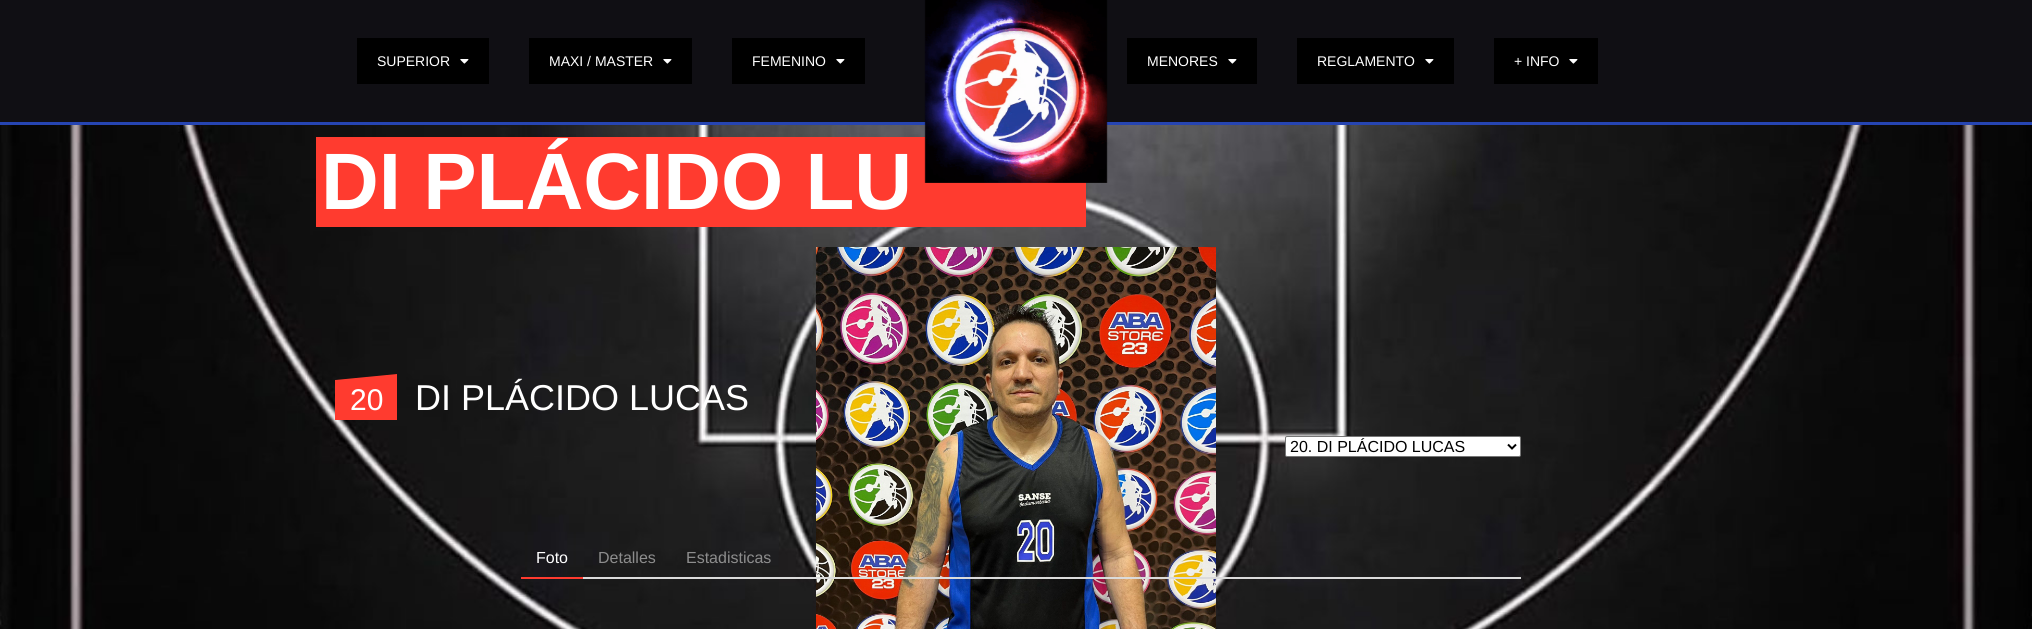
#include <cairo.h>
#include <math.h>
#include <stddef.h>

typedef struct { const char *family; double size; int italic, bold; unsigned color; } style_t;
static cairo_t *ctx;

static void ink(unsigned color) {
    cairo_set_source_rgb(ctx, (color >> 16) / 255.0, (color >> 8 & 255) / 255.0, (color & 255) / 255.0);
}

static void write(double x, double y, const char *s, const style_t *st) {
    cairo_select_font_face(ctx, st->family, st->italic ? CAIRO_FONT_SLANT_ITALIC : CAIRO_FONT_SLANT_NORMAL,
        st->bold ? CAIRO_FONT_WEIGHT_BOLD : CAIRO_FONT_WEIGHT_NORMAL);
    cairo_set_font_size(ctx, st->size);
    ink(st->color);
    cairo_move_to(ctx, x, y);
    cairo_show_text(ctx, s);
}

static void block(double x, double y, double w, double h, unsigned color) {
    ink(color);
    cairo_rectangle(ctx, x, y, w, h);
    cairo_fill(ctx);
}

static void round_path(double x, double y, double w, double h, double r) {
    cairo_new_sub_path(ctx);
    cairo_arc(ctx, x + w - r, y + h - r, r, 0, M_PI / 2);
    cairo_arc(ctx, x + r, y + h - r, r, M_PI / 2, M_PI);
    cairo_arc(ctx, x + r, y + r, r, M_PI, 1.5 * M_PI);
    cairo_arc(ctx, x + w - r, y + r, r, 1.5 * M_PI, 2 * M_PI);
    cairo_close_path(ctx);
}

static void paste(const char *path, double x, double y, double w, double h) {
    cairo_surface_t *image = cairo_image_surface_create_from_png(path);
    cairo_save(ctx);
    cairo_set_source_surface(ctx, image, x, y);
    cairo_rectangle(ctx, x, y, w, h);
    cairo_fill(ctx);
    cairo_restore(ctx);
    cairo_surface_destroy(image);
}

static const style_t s1 = {"Liberation Sans", 14, 0, 0, 0xffffff};
static const style_t s2 = {"Liberation Sans", 80, 0, 1, 0xffffff};
static const style_t s3 = {"Liberation Sans", 30, 0, 0, 0xffffff};
static const style_t s4 = {"Liberation Sans", 36, 0, 0, 0xffffff};
static const style_t s5 = {"Liberation Sans", 16, 0, 0, 0x000000};
static const style_t s6 = {"Liberation Sans", 16, 0, 0, 0xffffff};
static const style_t s7 = {"Liberation Sans", 16, 0, 0, 0x8d8d8d};

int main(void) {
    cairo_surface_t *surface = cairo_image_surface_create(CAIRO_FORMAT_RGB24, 2032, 629);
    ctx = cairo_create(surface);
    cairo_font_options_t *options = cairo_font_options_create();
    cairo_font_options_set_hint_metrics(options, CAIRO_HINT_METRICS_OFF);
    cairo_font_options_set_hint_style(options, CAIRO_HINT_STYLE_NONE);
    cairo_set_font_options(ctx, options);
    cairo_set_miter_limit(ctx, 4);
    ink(0x100f14);
    cairo_paint(ctx);
    block(0, 122, 2032, 3, 0x2645b2);
    block(357, 38, 132, 46, 0x000000);
    write(377, 66, "SUPERIOR", &s1);
    paste("pic1.png", 460, 59, 9, 5);
    block(529, 38, 163, 46, 0x000000);
    write(549, 66, "MAXI / MASTER", &s1);
    paste("pic1.png", 663, 59, 9, 5);
    block(732, 38, 133, 46, 0x000000);
    write(752, 66, "FEMENINO", &s1);
    paste("pic1.png", 836, 59, 9, 5);
    paste("pic3.png", 0, 125, 2032, 504);
    block(316, 137, 770, 90, 0xff3b2f);
    paste("pic2.png", 924, 0, 184, 183);
    block(1127, 38, 130, 46, 0x000000);
    write(1147, 66, "MENORES", &s1);
    paste("pic1.png", 1228, 59, 9, 5);
    block(1297, 38, 157, 46, 0x000000);
    write(1317, 66, "REGLAMENTO", &s1);
    paste("pic1.png", 1425, 59, 9, 5);
    block(1494, 38, 104, 46, 0x000000);
    write(1514, 66, "+ INFO", &s1);
    paste("pic1.png", 1569, 59, 9, 5);
    write(321, 209, "DI PLÁCIDO LU", &s2);
    paste("pic4.png", 816, 247, 400, 382);
    block(335, 394, 62, 26, 0xff3b2f);
    cairo_new_path(ctx);
    cairo_move_to(ctx, 335, 380);
    cairo_line_to(ctx, 397, 374);
    cairo_line_to(ctx, 397, 394);
    cairo_line_to(ctx, 335, 400);
    cairo_close_path(ctx);
    cairo_fill(ctx);
    write(350, 410, "20", &s3);
    write(415, 410, "DI PLÁCIDO LUCAS", &s4);
    round_path(1285.5, 436.5, 235, 20, 1.5);
    cairo_fill_preserve(ctx);
    ink(0x767676);
    cairo_set_line_width(ctx, 1);
    cairo_stroke(ctx);
    cairo_new_path(ctx);
    cairo_move_to(ctx, 1508, 444.5);
    cairo_line_to(ctx, 1512, 448.5);
    cairo_line_to(ctx, 1516, 444.5);
    ink(0x000000);
    cairo_set_line_width(ctx, 2);
    cairo_stroke(ctx);
    write(1290, 452, "20. DI PLÁCIDO LUCAS", &s5);
    block(583, 577, 938, 2, 0xdbdbdb);
    block(521, 577, 62, 2, 0xff3b2f);
    write(536, 563, "Foto", &s6);
    write(598, 563, "Detalles", &s7);
    write(686, 563, "Estadisticas", &s7);
    cairo_surface_write_to_png(surface, "screenshot.png");
    cairo_font_options_destroy(options);
    cairo_destroy(ctx);
    cairo_surface_destroy(surface);
    return 0;
}
